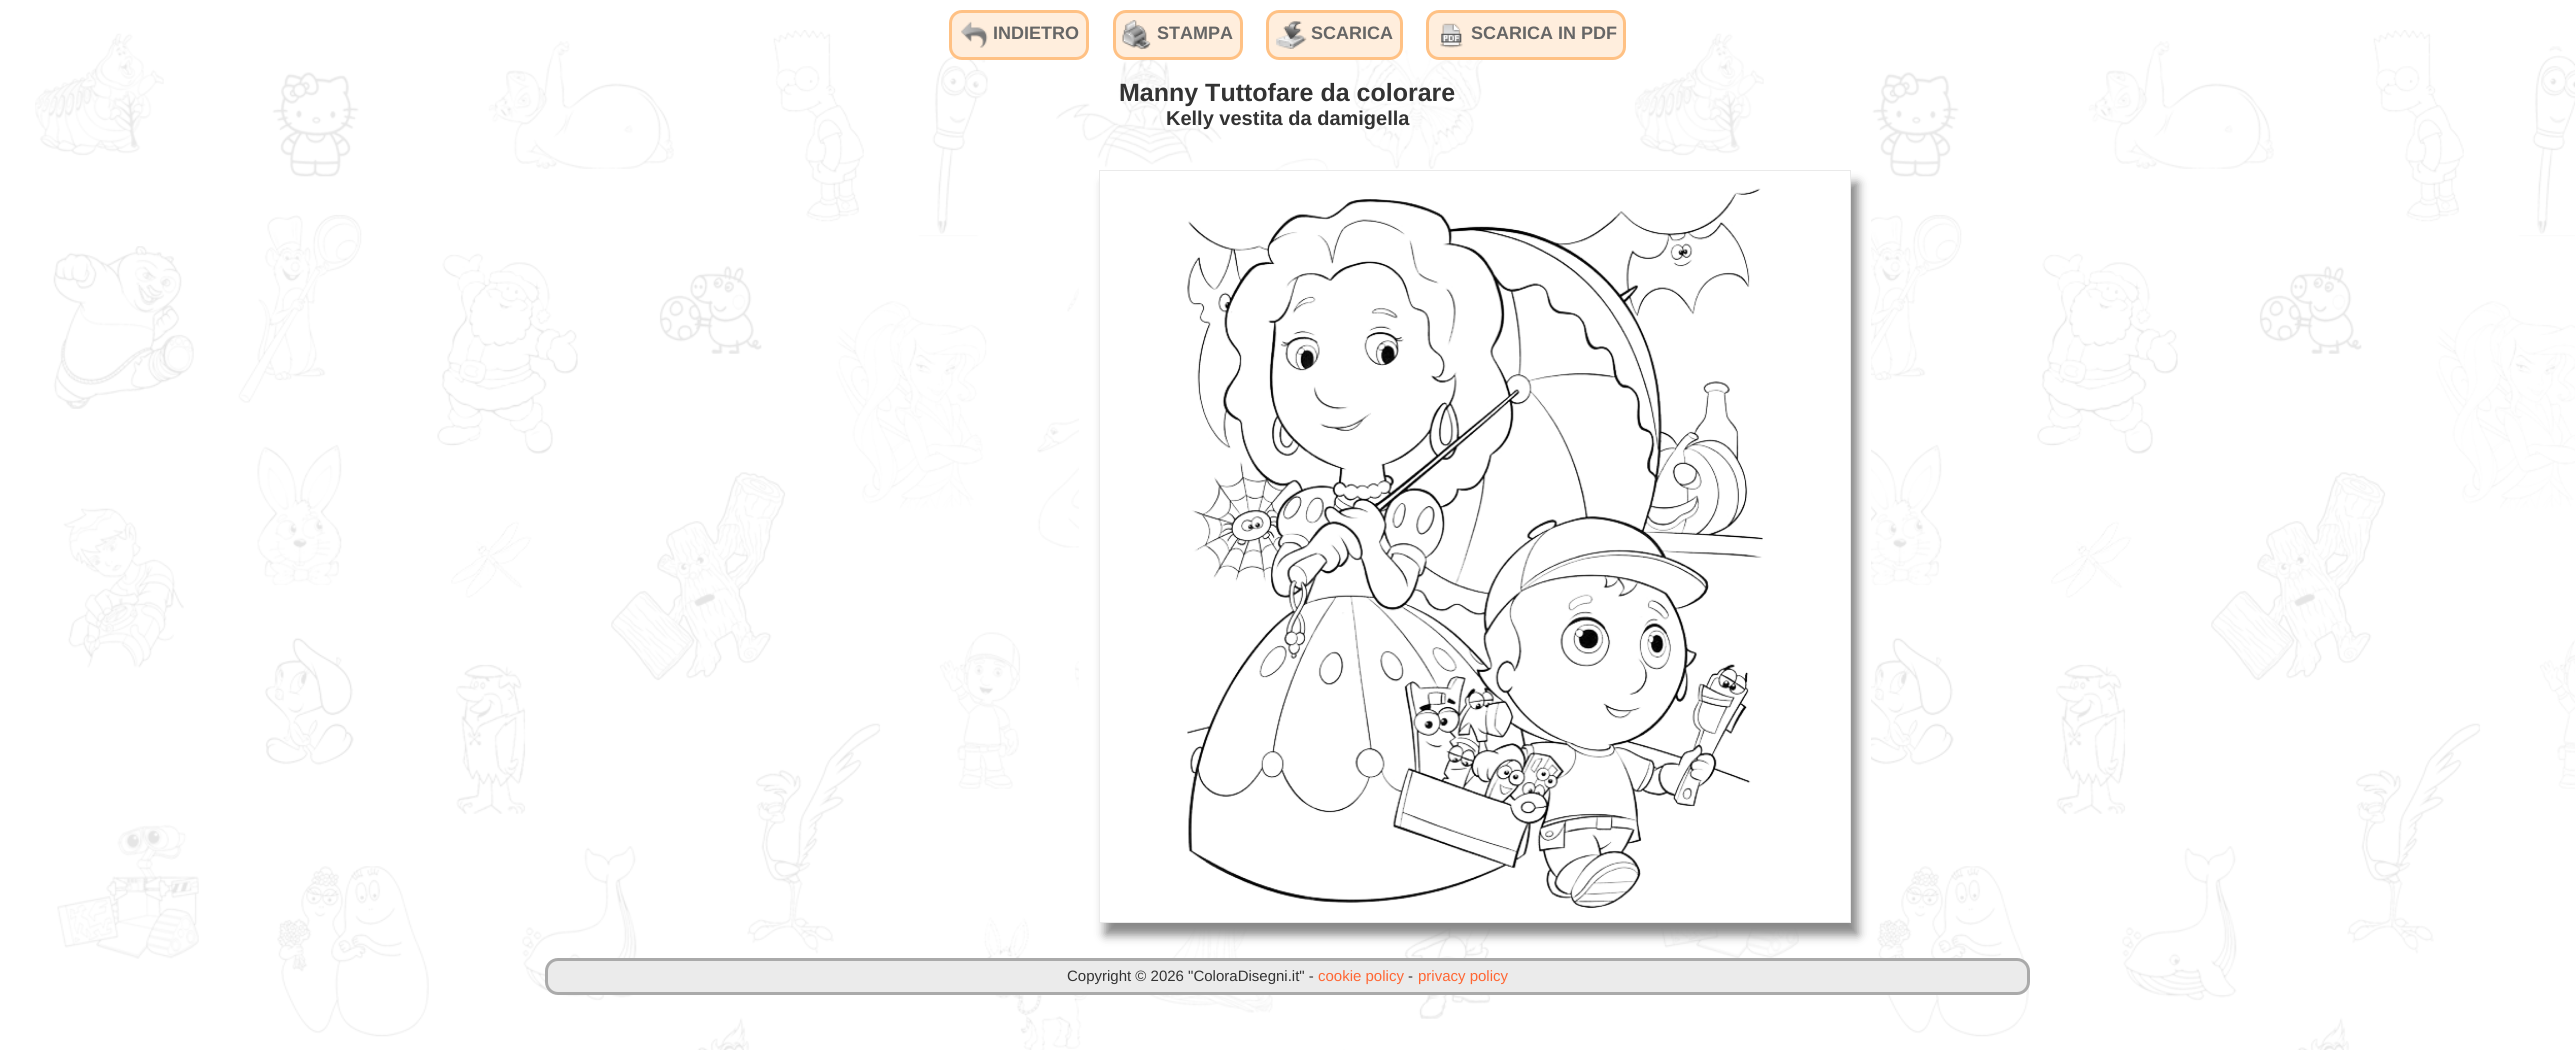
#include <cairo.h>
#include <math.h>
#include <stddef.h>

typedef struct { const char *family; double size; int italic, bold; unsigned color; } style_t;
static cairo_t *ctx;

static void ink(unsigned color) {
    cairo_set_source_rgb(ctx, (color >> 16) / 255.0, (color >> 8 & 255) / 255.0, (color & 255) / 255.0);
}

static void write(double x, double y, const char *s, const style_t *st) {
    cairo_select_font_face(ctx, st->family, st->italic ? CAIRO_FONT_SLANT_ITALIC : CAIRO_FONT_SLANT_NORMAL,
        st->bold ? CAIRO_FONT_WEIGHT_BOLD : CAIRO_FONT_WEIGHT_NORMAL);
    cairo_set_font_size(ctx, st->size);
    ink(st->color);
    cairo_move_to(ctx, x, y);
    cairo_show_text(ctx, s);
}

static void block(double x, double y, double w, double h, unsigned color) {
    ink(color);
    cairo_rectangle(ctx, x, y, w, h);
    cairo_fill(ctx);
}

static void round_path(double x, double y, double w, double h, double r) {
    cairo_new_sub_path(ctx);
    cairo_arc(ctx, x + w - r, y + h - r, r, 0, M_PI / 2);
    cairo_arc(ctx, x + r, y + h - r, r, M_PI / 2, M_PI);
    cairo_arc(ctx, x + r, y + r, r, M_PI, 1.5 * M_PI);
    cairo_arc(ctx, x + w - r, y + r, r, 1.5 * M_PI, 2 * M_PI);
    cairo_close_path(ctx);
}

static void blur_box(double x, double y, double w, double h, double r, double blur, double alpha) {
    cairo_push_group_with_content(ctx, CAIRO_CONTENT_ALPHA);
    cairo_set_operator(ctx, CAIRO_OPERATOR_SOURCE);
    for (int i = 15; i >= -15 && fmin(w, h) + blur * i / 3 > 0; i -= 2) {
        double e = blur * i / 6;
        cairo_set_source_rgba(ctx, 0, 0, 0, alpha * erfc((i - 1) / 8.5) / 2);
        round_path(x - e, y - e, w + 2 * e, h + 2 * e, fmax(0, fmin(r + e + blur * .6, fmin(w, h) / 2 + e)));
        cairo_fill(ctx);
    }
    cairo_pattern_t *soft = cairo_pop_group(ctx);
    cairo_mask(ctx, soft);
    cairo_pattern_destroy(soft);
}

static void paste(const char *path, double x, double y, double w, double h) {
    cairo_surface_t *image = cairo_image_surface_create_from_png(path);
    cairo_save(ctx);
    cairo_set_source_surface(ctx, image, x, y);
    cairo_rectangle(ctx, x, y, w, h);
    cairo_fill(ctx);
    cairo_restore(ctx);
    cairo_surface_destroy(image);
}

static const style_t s1 = {"Liberation Sans", 18, 0, 1, 0x666666};
static const style_t s2 = {"Liberation Sans", 25, 0, 1, 0x333333};
static const style_t s3 = {"Liberation Sans", 20, 0, 1, 0x333333};
static const style_t s4 = {"Liberation Sans", 15, 0, 0, 0x333333};
static const style_t s5 = {"Liberation Sans", 15, 0, 0, 0xff6633};

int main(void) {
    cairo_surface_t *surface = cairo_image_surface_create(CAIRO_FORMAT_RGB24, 2575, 1050);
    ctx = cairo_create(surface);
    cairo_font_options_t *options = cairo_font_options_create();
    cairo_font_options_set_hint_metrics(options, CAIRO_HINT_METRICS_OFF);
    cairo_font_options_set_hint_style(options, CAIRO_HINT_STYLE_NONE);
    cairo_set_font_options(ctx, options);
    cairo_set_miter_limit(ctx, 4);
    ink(0xffffff);
    cairo_paint(ctx);
    paste("pic1.png", 35, 30, 2540, 1020);
    ink(0xffeedd);
    round_path(950.5, 11.5, 137, 47, 11.5);
    cairo_fill_preserve(ctx);
    ink(0xffc184);
    cairo_set_line_width(ctx, 3);
    cairo_stroke(ctx);
    paste("pic2.png", 961, 21, 27, 27);
    write(993, 39, "INDIETRO", &s1);
    ink(0xffeedd);
    round_path(1114.5, 11.5, 127, 47, 11.5);
    cairo_fill_preserve(ctx);
    ink(0xffc184);
    cairo_stroke(ctx);
    paste("pic3.png", 1122, 20, 29, 30);
    write(1157, 39, "STAMPA", &s1);
    ink(0xffeedd);
    round_path(1267.5, 11.5, 134, 47, 11.5);
    cairo_fill_preserve(ctx);
    ink(0xffc184);
    cairo_stroke(ctx);
    paste("pic4.png", 1276, 21, 31, 28);
    write(1311, 39, "SCARICA", &s1);
    ink(0xffeedd);
    round_path(1427.5, 11.5, 197, 47, 11.5);
    cairo_fill_preserve(ctx);
    ink(0xffc184);
    cairo_stroke(ctx);
    paste("pic5.png", 1440, 23, 23, 25);
    write(1471, 39, "SCARICA IN PDF", &s1);
    write(1119, 101, "Manny Tuttofare da colorare", &s2);
    write(1166, 125, "Kelly vestita da damigella", &s3);
    block(1079, 170, 792, 758, 0xffffff);
    cairo_save(ctx);
    cairo_set_fill_rule(ctx, CAIRO_FILL_RULE_EVEN_ODD);
    cairo_new_path(ctx);
    cairo_move_to(ctx, 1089, 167);
    cairo_line_to(ctx, 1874, 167);
    cairo_line_to(ctx, 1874, 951);
    cairo_line_to(ctx, 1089, 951);
    cairo_close_path(ctx);
    cairo_move_to(ctx, 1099, 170);
    cairo_line_to(ctx, 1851, 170);
    cairo_line_to(ctx, 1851, 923);
    cairo_line_to(ctx, 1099, 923);
    cairo_close_path(ctx);
    cairo_clip(ctx);
    ink(0x888888);
    blur_box(1105, 183, 753, 752, 0, 5, 1);
    cairo_restore(ctx);
    cairo_rectangle(ctx, 1099.5, 170.5, 751, 752);
    ink(0xeaeaea);
    cairo_set_line_width(ctx, 1);
    cairo_stroke(ctx);
    paste("pic6.png", 1187, 188, 576, 721);
    ink(0xebebeb);
    round_path(546.5, 959.5, 1482, 34, 11.5);
    cairo_fill_preserve(ctx);
    ink(0xaaaaaa);
    cairo_set_line_width(ctx, 3);
    cairo_stroke(ctx);
    write(1067, 981, "Copyright © 2026 \"ColoraDisegni.it\" -", &s4);
    write(1318, 981, "cookie policy", &s5);
    write(1408, 981, "-", &s4);
    write(1418, 981, "privacy policy", &s5);
    cairo_surface_write_to_png(surface, "screenshot.png");
    cairo_font_options_destroy(options);
    cairo_destroy(ctx);
    cairo_surface_destroy(surface);
    return 0;
}
